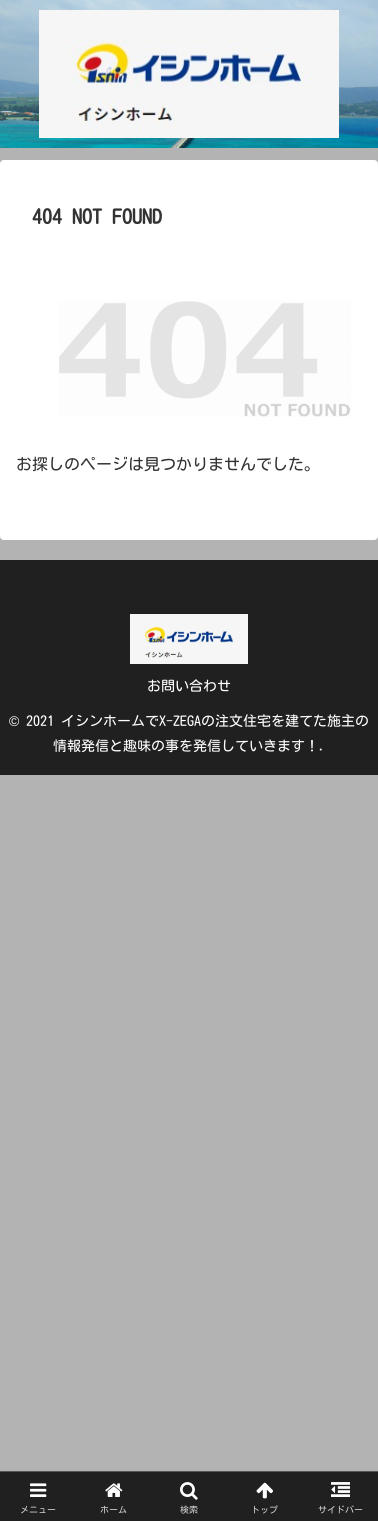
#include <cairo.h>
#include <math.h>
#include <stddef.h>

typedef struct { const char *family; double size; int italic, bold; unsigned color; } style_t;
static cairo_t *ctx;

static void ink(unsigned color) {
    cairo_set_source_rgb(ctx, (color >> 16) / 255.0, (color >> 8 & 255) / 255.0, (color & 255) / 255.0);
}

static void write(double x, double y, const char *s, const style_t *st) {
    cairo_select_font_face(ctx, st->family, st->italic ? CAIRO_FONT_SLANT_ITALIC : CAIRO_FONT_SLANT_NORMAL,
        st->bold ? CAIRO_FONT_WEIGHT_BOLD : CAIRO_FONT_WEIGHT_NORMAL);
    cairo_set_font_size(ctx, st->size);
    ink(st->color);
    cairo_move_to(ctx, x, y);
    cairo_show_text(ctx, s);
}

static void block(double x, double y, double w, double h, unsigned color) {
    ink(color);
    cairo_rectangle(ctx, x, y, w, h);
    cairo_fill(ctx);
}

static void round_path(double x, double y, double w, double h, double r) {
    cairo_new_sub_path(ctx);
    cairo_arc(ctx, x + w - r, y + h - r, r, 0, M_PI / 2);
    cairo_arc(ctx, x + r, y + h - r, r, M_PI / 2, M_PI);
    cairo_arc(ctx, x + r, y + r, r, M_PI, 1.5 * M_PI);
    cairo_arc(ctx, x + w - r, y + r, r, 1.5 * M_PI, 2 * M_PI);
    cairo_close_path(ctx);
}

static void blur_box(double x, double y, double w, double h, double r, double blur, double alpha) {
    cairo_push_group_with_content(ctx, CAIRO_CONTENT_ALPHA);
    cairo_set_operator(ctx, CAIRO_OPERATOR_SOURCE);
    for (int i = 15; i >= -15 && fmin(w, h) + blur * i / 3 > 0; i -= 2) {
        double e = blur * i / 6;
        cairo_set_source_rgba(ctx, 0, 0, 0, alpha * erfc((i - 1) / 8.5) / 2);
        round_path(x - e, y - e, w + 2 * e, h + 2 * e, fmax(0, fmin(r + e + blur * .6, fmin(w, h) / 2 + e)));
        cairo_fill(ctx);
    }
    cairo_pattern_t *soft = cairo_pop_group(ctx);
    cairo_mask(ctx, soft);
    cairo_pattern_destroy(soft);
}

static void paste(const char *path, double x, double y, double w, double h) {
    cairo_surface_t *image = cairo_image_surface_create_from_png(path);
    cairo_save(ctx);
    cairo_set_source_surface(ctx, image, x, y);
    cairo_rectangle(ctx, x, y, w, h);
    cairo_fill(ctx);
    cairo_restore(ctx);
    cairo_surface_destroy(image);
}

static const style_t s1 = {"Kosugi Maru", 20, 0, 1, 0x333333};
static const style_t s2 = {"Kosugi Maru", 16, 0, 0, 0x333333};
static const style_t s3 = {"Kosugi Maru", 14, 0, 0, 0xffffff};
static const style_t s4 = {"Liberation Sans", 14, 0, 0, 0xffffff};
static const style_t s5 = {"Kosugi Maru", 9, 0, 0, 0xd2d2d2};

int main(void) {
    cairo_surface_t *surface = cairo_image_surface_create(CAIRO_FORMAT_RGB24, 378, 1521);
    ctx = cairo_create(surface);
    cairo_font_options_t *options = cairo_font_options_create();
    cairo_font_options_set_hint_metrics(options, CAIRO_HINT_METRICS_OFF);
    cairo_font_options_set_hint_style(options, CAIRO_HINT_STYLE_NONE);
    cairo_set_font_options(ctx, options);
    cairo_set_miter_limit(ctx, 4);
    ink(0xb3b3b3);
    cairo_paint(ctx);
    paste("pic1.png", 0, 0, 378, 148);
    paste("pic2.png", 39, 10, 300, 128);
    ink(0xffffff);
    round_path(0, 160, 378, 380, 4);
    cairo_fill(ctx);
    write(32, 224, "404 NOT FOUND", &s1);
    paste("pic3.png", 59, 301, 292, 116);
    write(16, 470, "お探しのページは見つかりませんでした。", &s2);
    block(0, 560, 378, 215, 0x202020);
    paste("pic4.png", 130, 614, 118, 50);
    write(147, 691, "お問い合わせ", &s3);
    write(9, 726, "©", &s4);
    write(26, 726, "2021 イシンホームでX-ZEGAの注文住宅を建てた施主の", &s3);
    write(53, 751, "情報発信と趣味の事を発信していきます！.", &s3);
    ink(0xa9a9a9);
    blur_box(0, 1471, 378, 50, 0, 2.5, 1);
    block(0, 1472, 378, 49, 0x202020);
    block(0, 1471, 378, 1, 0x595857);
    paste("pic5.png", 30, 1483, 17, 14);
    write(20, 1513, "メニュー", &s5);
    paste("pic6.png", 105, 1483, 18, 14);
    write(100, 1513, "ホーム", &s5);
    paste("pic7.png", 180, 1482, 18, 18);
    write(180, 1513, "検索", &s5);
    paste("pic8.png", 256, 1482, 17, 17);
    write(251, 1513, "トップ", &s5);
    paste("pic9.png", 331, 1482, 19, 15);
    write(318, 1513, "サイドバー", &s5);
    cairo_surface_write_to_png(surface, "screenshot.png");
    cairo_font_options_destroy(options);
    cairo_destroy(ctx);
    cairo_surface_destroy(surface);
    return 0;
}
